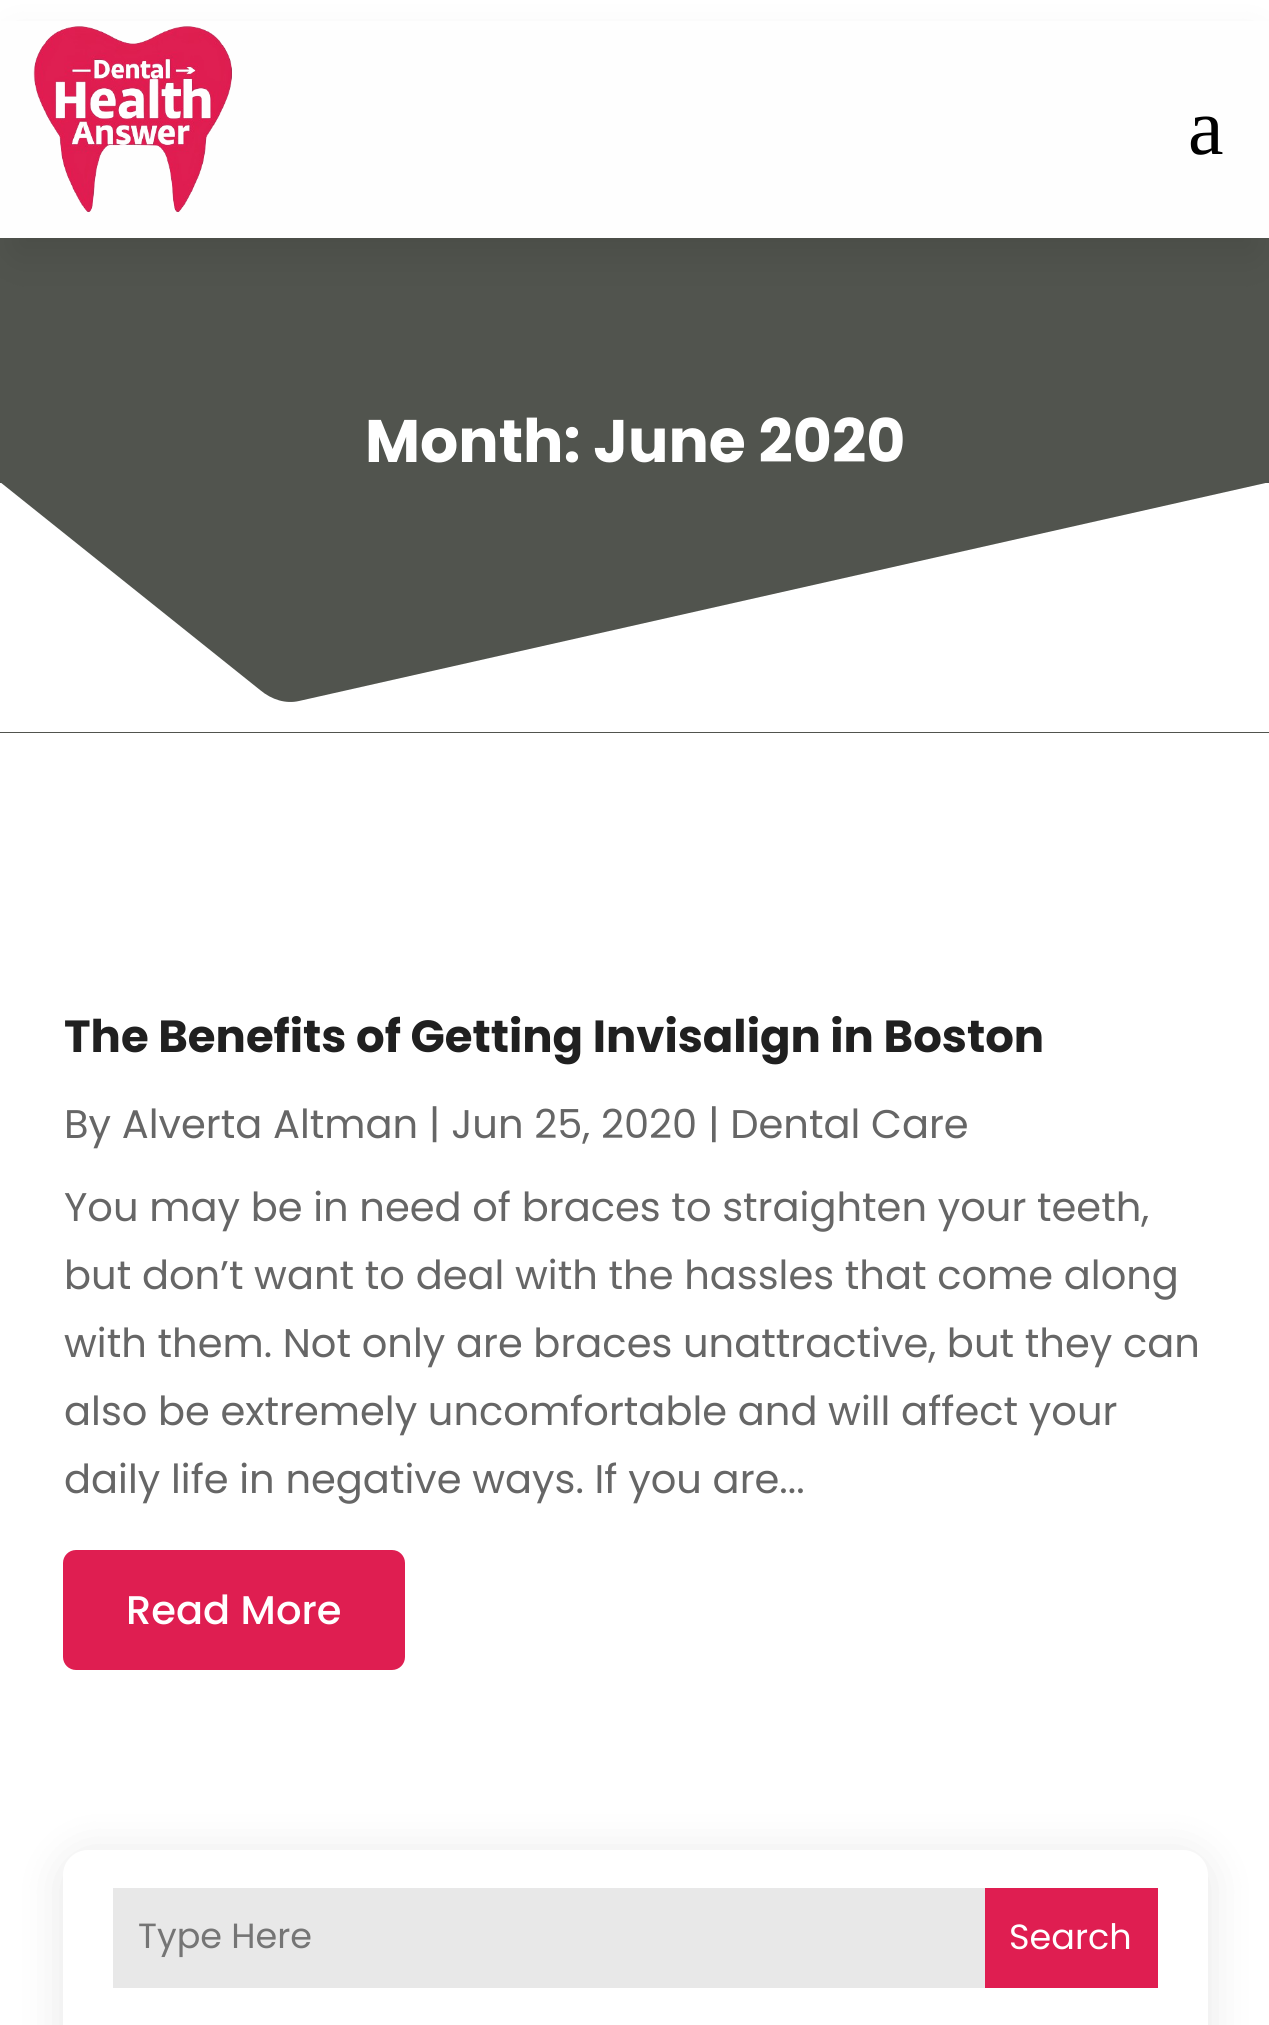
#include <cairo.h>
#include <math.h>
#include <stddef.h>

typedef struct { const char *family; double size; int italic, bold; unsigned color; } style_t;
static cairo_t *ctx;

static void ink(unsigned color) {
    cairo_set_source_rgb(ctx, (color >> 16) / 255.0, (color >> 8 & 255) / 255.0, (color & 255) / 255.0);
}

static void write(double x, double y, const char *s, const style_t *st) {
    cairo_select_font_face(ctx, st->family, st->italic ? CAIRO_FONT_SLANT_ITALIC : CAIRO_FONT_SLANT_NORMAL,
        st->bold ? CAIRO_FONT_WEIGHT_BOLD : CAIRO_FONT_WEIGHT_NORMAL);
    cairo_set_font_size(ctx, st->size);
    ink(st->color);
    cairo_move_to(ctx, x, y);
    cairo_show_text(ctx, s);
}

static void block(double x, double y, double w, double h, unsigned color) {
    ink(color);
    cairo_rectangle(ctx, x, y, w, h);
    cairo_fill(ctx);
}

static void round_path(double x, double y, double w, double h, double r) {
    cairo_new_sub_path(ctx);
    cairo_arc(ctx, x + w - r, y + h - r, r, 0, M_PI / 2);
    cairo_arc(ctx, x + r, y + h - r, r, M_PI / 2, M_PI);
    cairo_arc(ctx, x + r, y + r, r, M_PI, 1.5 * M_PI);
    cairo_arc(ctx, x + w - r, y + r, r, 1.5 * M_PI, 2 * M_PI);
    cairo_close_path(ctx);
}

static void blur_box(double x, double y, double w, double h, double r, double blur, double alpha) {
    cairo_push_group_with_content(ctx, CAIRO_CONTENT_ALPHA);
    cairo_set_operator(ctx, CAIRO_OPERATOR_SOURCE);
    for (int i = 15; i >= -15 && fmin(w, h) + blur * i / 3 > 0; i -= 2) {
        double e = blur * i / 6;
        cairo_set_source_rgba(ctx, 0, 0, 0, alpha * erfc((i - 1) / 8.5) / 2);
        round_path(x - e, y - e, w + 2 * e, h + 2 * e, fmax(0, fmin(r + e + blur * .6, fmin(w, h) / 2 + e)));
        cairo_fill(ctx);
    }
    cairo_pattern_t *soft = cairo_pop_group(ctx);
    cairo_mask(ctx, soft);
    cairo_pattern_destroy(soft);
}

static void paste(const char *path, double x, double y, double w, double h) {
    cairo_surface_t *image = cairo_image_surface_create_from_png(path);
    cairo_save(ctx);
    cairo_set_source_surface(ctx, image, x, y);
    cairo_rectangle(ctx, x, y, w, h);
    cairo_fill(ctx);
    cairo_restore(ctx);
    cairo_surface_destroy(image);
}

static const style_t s1 = {"Liberation Serif", 80, 0, 0, 0x000000};
static const style_t s2 = {"Poppins", 60, 0, 1, 0xffffff};
static const style_t s3 = {"Poppins", 45, 0, 1, 0x202020};
static const style_t s4 = {"Poppins", 40, 0, 0, 0x666666};
static const style_t s5 = {"Poppins Medium", 40, 0, 0, 0xffffff};
static const style_t s6 = {"Poppins", 35, 0, 0, 0x757575};
static const style_t s7 = {"Poppins", 35, 0, 0, 0xffffff};

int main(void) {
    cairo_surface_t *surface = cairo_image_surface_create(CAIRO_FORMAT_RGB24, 1269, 2025);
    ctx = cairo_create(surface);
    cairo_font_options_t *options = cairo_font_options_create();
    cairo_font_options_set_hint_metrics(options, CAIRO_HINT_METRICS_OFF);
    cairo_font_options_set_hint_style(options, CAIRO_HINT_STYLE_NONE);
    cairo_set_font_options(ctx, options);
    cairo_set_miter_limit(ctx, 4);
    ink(0xffffff);
    cairo_paint(ctx);
    block(0, 238, 1269, 495, 0x51544e);
    ink(0x000000);
    blur_box(15, 45, 1240, 208, 0, 22.5, 0.1);
    block(0, 21, 1269, 217, 0xfefefe);
    paste("pic1.png", 33, 26, 199, 187);
    write(1188, 154, "a", &s1);
    write(365, 462, "Month: June 2020", &s2);
    cairo_save(ctx);
    cairo_rectangle(ctx, 0, 483, 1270, 250);
    cairo_clip(ctx);
    cairo_new_path(ctx);
    cairo_move_to(ctx, 0, 482);
    cairo_line_to(ctx, 260, 690);
    cairo_curve_to(ctx, 272, 700, 286, 704, 299, 701);
    cairo_line_to(ctx, 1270, 482);
    cairo_line_to(ctx, 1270, 732);
    cairo_line_to(ctx, 0, 732);
    cairo_close_path(ctx);
    cairo_fill(ctx);
    cairo_restore(ctx);
    write(64, 1052, "The Benefits of Getting Invisalign in Boston", &s3);
    write(64, 1138, "By Alverta Altman | Jun 25, 2020 | Dental Care", &s4);
    write(64, 1221, "You may be in need of braces to straighten your teeth,", &s4);
    write(64, 1289, "but don’t want to deal with the hassles that come along", &s4);
    write(64, 1357, "with them. Not only are braces unattractive, but they can", &s4);
    write(64, 1425, "also be extremely uncomfortable and will affect your", &s4);
    write(64, 1493, "daily life in negative ways. If you are...", &s4);
    ink(0xdf1e51);
    round_path(63, 1550, 342, 120, 13);
    cairo_fill(ctx);
    write(126, 1624, "Read More", &s5);
    ink(0x000000);
    blur_box(63, 1855, 1145, 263, 25, 22.5, 0.1);
    ink(0xffffff);
    round_path(63, 1850, 1145, 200, 25);
    cairo_fill(ctx);
    block(113, 1888, 872, 100, 0xe8e8e8);
    write(138, 1948, "Type Here", &s6);
    block(985, 1888, 173, 100, 0xdf1e51);
    write(1009, 1949, "Search", &s7);
    cairo_surface_write_to_png(surface, "screenshot.png");
    cairo_font_options_destroy(options);
    cairo_destroy(ctx);
    cairo_surface_destroy(surface);
    return 0;
}
